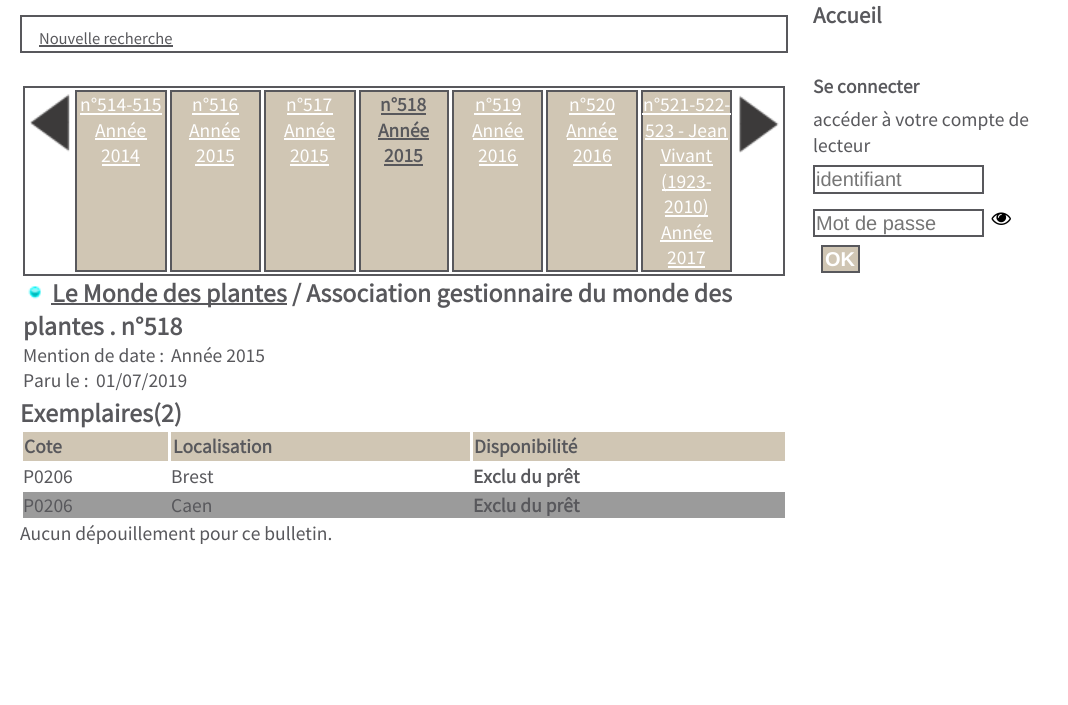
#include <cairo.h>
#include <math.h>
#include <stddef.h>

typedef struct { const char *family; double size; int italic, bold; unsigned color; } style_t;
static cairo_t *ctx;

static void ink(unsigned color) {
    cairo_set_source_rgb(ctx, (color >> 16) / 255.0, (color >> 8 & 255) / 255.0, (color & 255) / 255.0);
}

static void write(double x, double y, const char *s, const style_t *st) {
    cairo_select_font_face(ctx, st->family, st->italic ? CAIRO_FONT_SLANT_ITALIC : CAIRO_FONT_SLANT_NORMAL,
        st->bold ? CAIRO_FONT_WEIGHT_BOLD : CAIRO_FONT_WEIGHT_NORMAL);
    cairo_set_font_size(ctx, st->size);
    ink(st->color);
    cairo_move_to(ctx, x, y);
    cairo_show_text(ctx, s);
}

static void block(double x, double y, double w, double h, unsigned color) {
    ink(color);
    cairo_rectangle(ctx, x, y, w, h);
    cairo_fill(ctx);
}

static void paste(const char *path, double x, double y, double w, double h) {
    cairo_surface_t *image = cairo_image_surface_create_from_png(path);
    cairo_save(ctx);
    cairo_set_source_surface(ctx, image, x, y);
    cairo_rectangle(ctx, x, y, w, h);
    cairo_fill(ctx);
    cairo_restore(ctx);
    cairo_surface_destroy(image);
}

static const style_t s1 = {"Source Sans Pro", 16.5, 0, 0, 0x58585c};
static const style_t s2 = {"Source Sans Pro", 19.5, 0, 0, 0xffffff};
static const style_t s3 = {"Source Sans Pro", 19.5, 0, 1, 0x58585c};
static const style_t s4 = {"Source Sans Pro", 26, 0, 1, 0x58585c};
static const style_t s5 = {"Source Sans Pro", 19.5, 0, 0, 0x58585c};
static const style_t s6 = {"Source Sans Pro", 23, 0, 1, 0x58585c};
static const style_t s7 = {"Liberation Sans", 20, 0, 0, 0x757575};
static const style_t s8 = {"Liberation Sans", 20, 0, 1, 0xffffff};

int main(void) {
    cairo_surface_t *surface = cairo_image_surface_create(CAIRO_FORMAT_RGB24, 1068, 705);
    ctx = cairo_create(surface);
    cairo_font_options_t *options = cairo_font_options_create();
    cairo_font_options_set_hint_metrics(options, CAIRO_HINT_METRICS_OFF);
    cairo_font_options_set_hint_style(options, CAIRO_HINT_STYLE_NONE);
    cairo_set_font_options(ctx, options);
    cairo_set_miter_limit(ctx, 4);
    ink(0xffffff);
    cairo_paint(ctx);
    cairo_rectangle(ctx, 21, 16, 766, 36);
    ink(0x58585c);
    cairo_stroke(ctx);
    write(39, 44, "Nouvelle recherche", &s1);
    block(39, 45, 134, 2, 0x58585c);
    cairo_rectangle(ctx, 24, 87, 760, 188);
    cairo_stroke(ctx);
    paste("pic1.png", 30, 94, 40, 58);
    ink(0xd0c6b4);
    cairo_rectangle(ctx, 76, 91, 90, 180);
    cairo_fill_preserve(ctx);
    ink(0x58585c);
    cairo_stroke(ctx);
    write(80, 111, "n°514-515", &s2);
    block(80, 113, 82, 2, 0xffffff);
    write(95, 137, "Année", &s2);
    block(95, 138, 52, 2, 0xffffff);
    write(101, 162, "2014", &s2);
    block(102, 164, 38, 2, 0xffffff);
    ink(0xd0c6b4);
    cairo_rectangle(ctx, 171, 91, 89, 180);
    cairo_fill_preserve(ctx);
    ink(0x58585c);
    cairo_stroke(ctx);
    write(192, 111, "n°516", &s2);
    block(192, 113, 47, 2, 0xffffff);
    write(189, 137, "Année", &s2);
    block(189, 138, 51, 2, 0xffffff);
    write(196, 162, "2015", &s2);
    block(195, 164, 39, 2, 0xffffff);
    ink(0xd0c6b4);
    cairo_rectangle(ctx, 265, 91, 90, 180);
    cairo_fill_preserve(ctx);
    ink(0x58585c);
    cairo_stroke(ctx);
    write(286, 111, "n°517", &s2);
    block(287, 113, 46, 2, 0xffffff);
    write(284, 137, "Année", &s2);
    block(284, 138, 51, 2, 0xffffff);
    write(290, 162, "2015", &s2);
    block(290, 164, 39, 2, 0xffffff);
    ink(0xd0c6b4);
    cairo_rectangle(ctx, 360, 91, 88, 180);
    cairo_fill_preserve(ctx);
    ink(0x58585c);
    cairo_stroke(ctx);
    write(380, 111, "n°518", &s3);
    block(381, 113, 45, 2, 0x58585c);
    write(378, 137, "Année", &s3);
    block(378, 138, 51, 2, 0x58585c);
    write(384, 162, "2015", &s3);
    block(384, 164, 39, 2, 0x58585c);
    ink(0xd0c6b4);
    cairo_rectangle(ctx, 453, 91, 89, 180);
    cairo_fill_preserve(ctx);
    ink(0x58585c);
    cairo_stroke(ctx);
    write(475, 111, "n°519", &s2);
    block(474, 113, 47, 2, 0xffffff);
    write(472, 137, "Année", &s2);
    block(473, 138, 51, 2, 0xffffff);
    write(478, 162, "2016", &s2);
    block(479, 164, 39, 2, 0xffffff);
    ink(0xd0c6b4);
    cairo_rectangle(ctx, 547, 91, 90, 180);
    cairo_fill_preserve(ctx);
    ink(0x58585c);
    cairo_stroke(ctx);
    write(569, 111, "n°520", &s2);
    block(569, 113, 46, 2, 0xffffff);
    write(566, 137, "Année", &s2);
    block(567, 138, 51, 2, 0xffffff);
    write(573, 162, "2016", &s2);
    block(573, 164, 39, 2, 0xffffff);
    ink(0xd0c6b4);
    cairo_rectangle(ctx, 642, 91, 89, 180);
    cairo_fill_preserve(ctx);
    ink(0x58585c);
    cairo_stroke(ctx);
    write(643, 111, "n°521-522-", &s2);
    block(642, 113, 89, 2, 0xffffff);
    write(645, 137, "523 - Jean", &s2);
    block(645, 138, 83, 2, 0xffffff);
    write(661, 162, "Vivant", &s2);
    block(660, 164, 53, 2, 0xffffff);
    block(662, 189, 49, 2, 0xffffff);
    write(661, 188, "(1923-", &s2);
    block(665, 215, 43, 2, 0xffffff);
    write(664, 213, "2010)", &s2);
    write(661, 239, "Année", &s2);
    block(660, 240, 53, 2, 0xffffff);
    write(667, 264, "2017", &s2);
    block(668, 266, 37, 2, 0xffffff);
    paste("pic2.png", 739, 95, 40, 58);
    paste("pic3.png", 28, 286, 13, 13);
    block(51, 303, 236, 2, 0x58585c);
    write(52, 302, "Le Monde des plantes / Association gestionnaire du monde des", &s4);
    write(23, 335, "plantes . n°518", &s4);
    write(23, 362, "Mention de date :", &s5);
    write(171, 362, "Année 2015", &s5);
    write(23, 387, "Paru le :", &s5);
    write(96, 387, "01/07/2019", &s5);
    write(20, 422, "Exemplaires(2)", &s4);
    block(23, 432, 145, 29, 0xd0c6b4);
    write(24, 453, "Cote", &s3);
    block(171, 432, 299, 29, 0xd0c6b4);
    write(173, 453, "Localisation", &s3);
    block(473, 432, 312, 29, 0xd0c6b4);
    write(474, 453, "Disponibilité", &s3);
    write(23, 483, "P0206", &s5);
    write(171, 483, "Brest", &s5);
    write(473, 483, "Exclu du prêt", &s3);
    block(23, 492, 762, 26, 0x9b9b9b);
    write(23, 512, "P0206", &s5);
    write(171, 512, "Caen", &s5);
    write(473, 512, "Exclu du prêt", &s3);
    write(20, 540, "Aucun dépouillement pour ce bulletin.", &s5);
    write(813, 23, "Accueil", &s6);
    write(813, 93, "Se connecter", &s3);
    write(813, 126, "accéder à votre compte de", &s5);
    write(813, 152, "lecteur", &s5);
    cairo_rectangle(ctx, 814, 166, 169, 27);
    cairo_stroke(ctx);
    write(816, 186, "identifiant", &s7);
    cairo_rectangle(ctx, 814, 210, 169, 26);
    ink(0x58585c);
    cairo_stroke(ctx);
    write(816, 230, "Mot de passe", &s7);
    paste("pic4.png", 991, 212, 20, 13);
    ink(0xd0c6b4);
    cairo_rectangle(ctx, 822, 246, 37, 26);
    cairo_fill_preserve(ctx);
    ink(0x58585c);
    cairo_stroke(ctx);
    write(825, 266, "OK", &s8);
    cairo_surface_write_to_png(surface, "screenshot.png");
    cairo_font_options_destroy(options);
    cairo_destroy(ctx);
    cairo_surface_destroy(surface);
    return 0;
}
